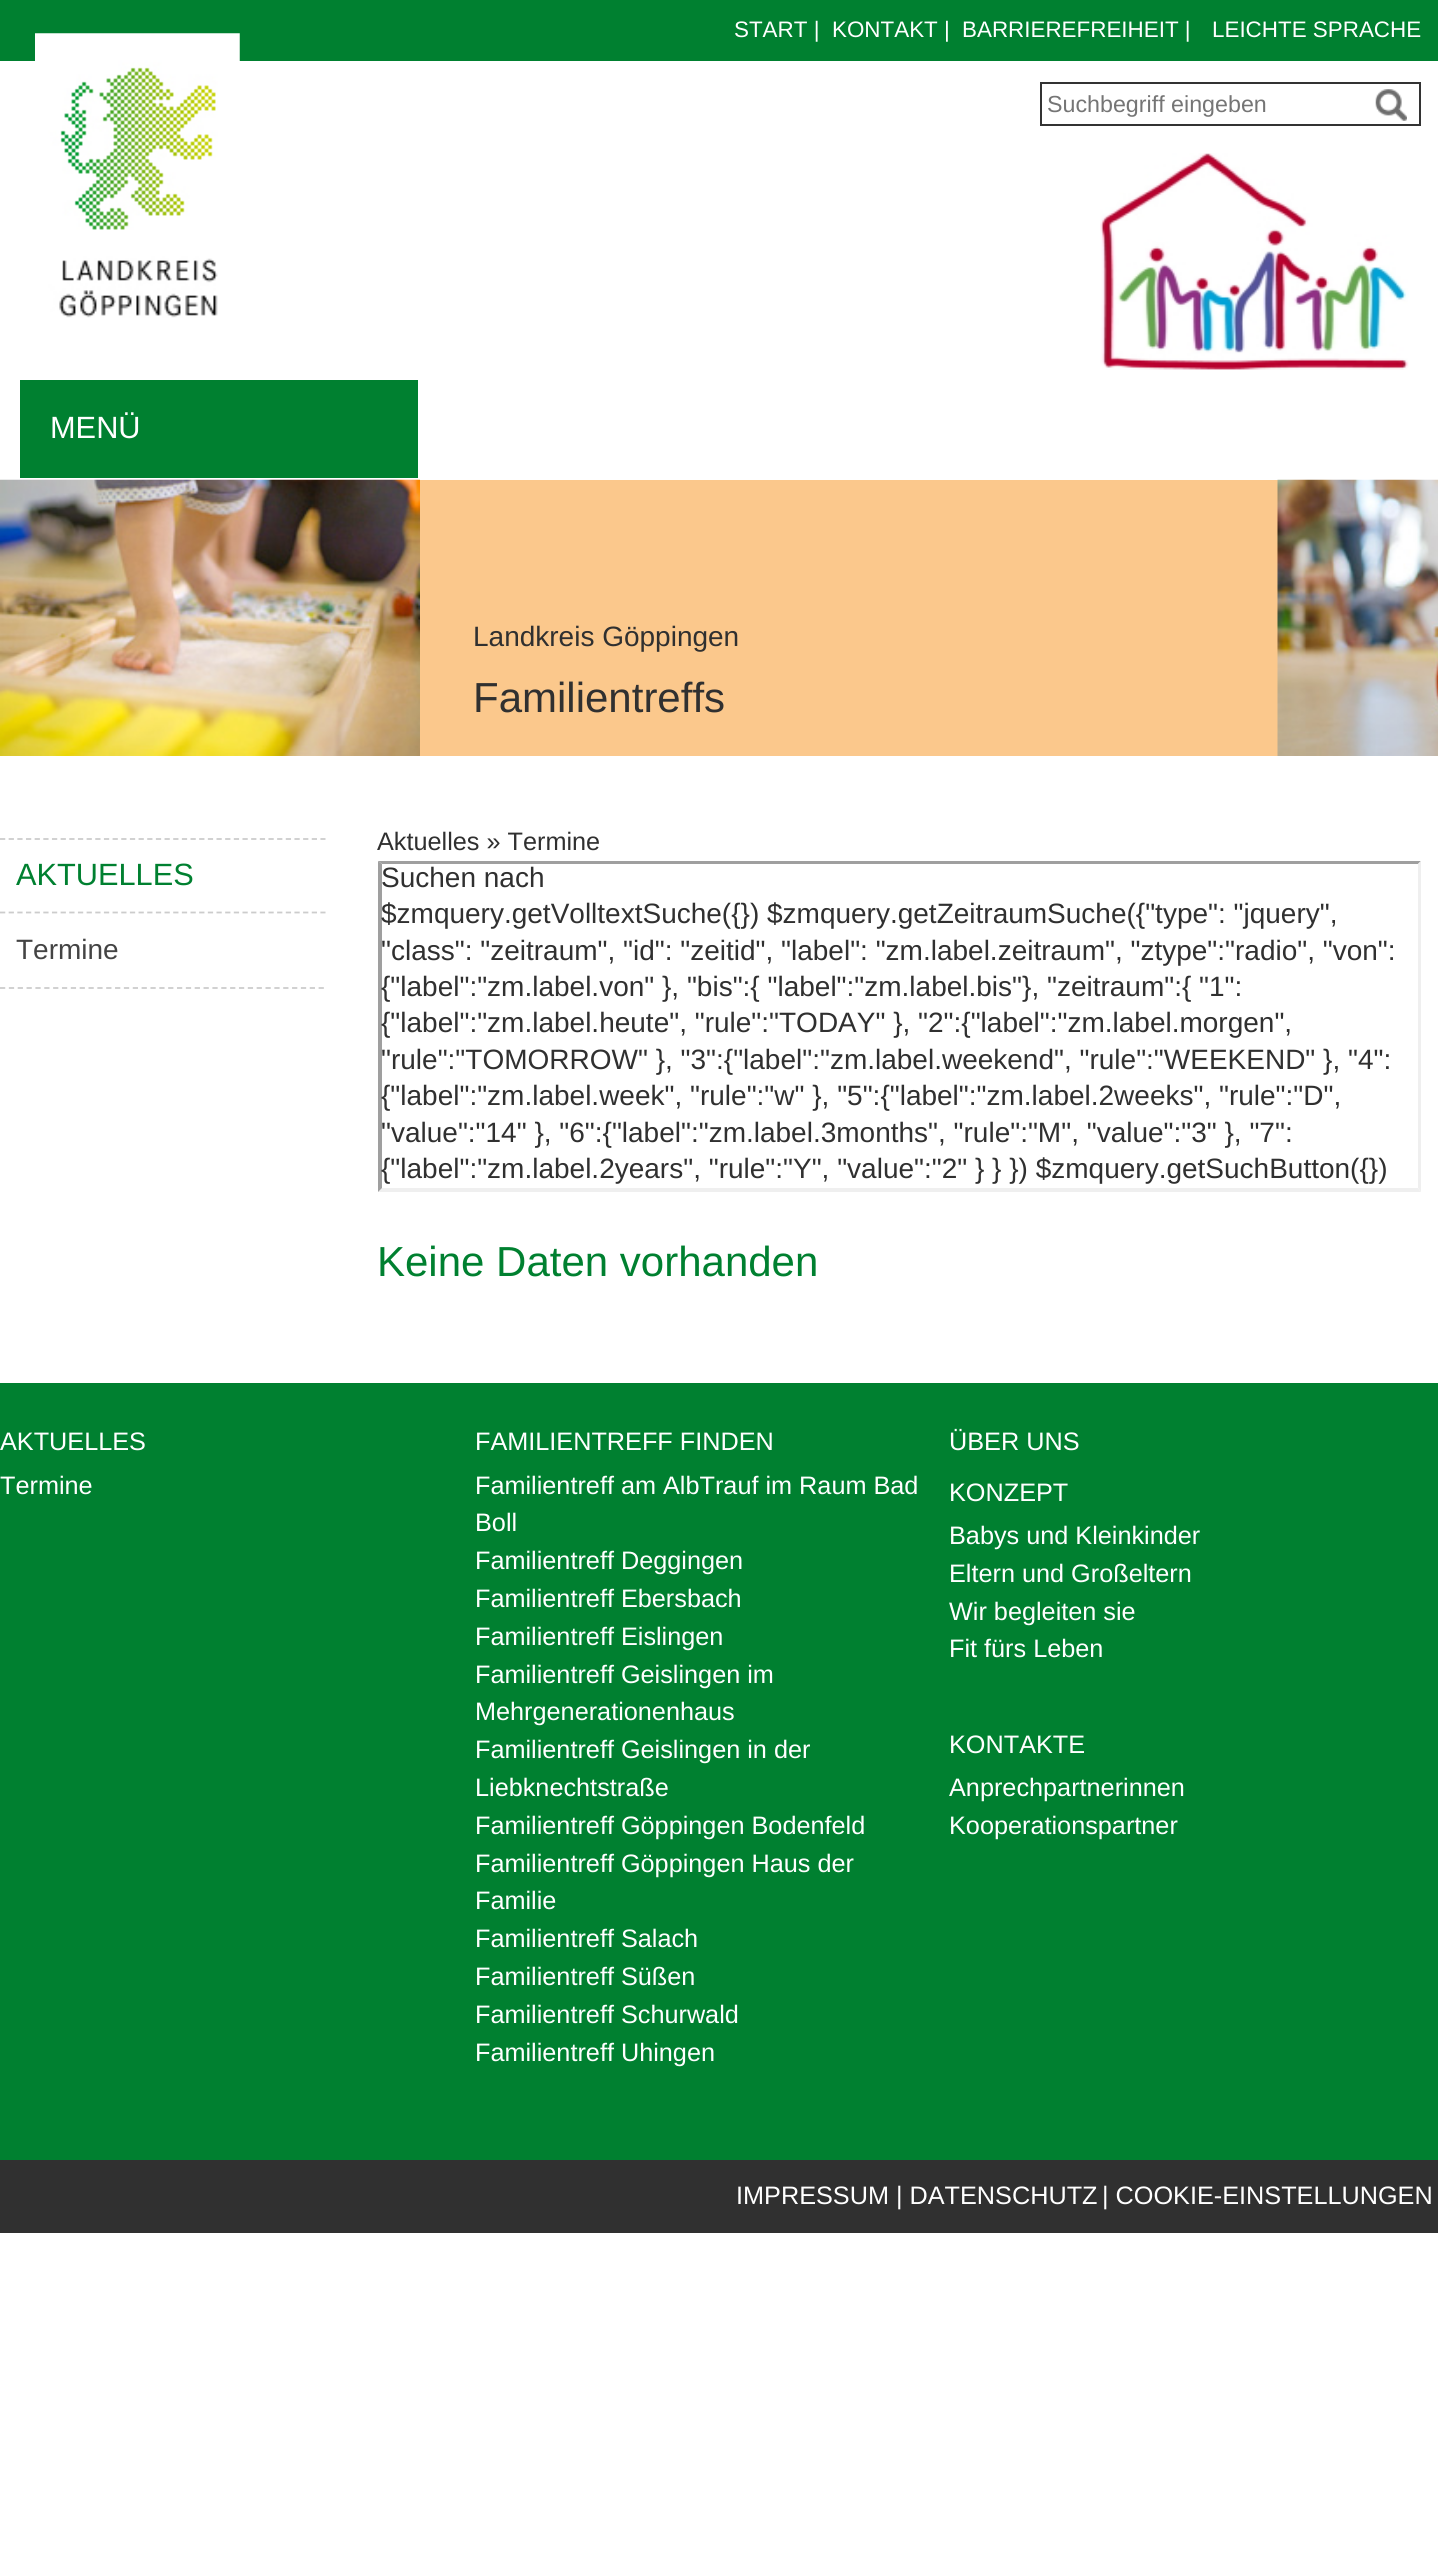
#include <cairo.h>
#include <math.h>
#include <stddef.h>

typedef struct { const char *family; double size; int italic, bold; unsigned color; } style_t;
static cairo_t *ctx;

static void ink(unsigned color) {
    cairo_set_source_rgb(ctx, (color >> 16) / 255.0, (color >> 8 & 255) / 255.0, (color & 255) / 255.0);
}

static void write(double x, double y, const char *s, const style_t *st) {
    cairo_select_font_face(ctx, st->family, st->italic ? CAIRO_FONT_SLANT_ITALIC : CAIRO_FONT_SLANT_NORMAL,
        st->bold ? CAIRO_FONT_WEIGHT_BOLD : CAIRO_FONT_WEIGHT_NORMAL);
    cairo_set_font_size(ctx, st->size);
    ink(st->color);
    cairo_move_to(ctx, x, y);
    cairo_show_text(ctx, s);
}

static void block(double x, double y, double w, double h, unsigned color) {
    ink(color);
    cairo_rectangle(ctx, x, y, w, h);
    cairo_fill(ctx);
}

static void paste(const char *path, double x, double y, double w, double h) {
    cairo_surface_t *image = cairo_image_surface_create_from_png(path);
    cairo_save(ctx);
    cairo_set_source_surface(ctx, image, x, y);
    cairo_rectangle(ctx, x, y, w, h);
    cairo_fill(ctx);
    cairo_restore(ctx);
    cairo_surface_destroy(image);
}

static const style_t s1 = {"Liberation Sans", 22.4, 0, 0, 0xffffff};
static const style_t s2 = {"Liberation Sans", 23.25, 0, 0, 0x757575};
static const style_t s3 = {"Liberation Sans", 30.75, 0, 0, 0xffffff};
static const style_t s4 = {"Liberation Sans", 28, 0, 0, 0x303030};
static const style_t s5 = {"Liberation Sans", 42, 0, 0, 0x303030};
static const style_t s6 = {"Liberation Sans", 30.75, 0, 0, 0x008030};
static const style_t s7 = {"Liberation Sans", 28, 0, 0, 0x444444};
static const style_t s8 = {"Liberation Sans", 25.25, 0, 0, 0x303030};
static const style_t s9 = {"Liberation Sans", 42, 0, 0, 0x008030};
static const style_t s10 = {"Liberation Sans", 25.25, 0, 0, 0xffffff};

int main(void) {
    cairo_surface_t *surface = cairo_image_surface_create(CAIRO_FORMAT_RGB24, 1438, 2564);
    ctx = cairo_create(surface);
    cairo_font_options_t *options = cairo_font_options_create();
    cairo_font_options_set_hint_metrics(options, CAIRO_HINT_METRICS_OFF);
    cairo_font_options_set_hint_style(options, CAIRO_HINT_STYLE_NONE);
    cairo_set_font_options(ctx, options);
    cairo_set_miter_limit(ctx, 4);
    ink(0xffffff);
    cairo_paint(ctx);
    block(0, 0, 1438, 61, 0x008030);
    write(734, 37, "START |", &s1);
    write(832, 37, "KONTAKT |", &s1);
    write(962, 37, "BARRIEREFREIHEIT |", &s1);
    write(1212, 37, "LEICHTE SPRACHE", &s1);
    paste("pic1.png", 35, 33, 205, 285);
    cairo_rectangle(ctx, 1041, 83, 379, 42);
    ink(0x333333);
    cairo_stroke(ctx);
    write(1047, 112, "Suchbegriff eingeben", &s2);
    paste("pic2.png", 1375, 89, 32, 32);
    paste("pic3.png", 1100, 153, 309, 217);
    block(20, 380, 398, 98, 0x008030);
    write(50, 438, "MENÜ", &s3);
    paste("pic4.png", 0, 479, 420, 277);
    block(420, 480, 858, 276, 0xfbc88c);
    write(473, 646, "Landkreis Göppingen", &s4);
    write(473, 712, "Familientreffs", &s5);
    paste("pic5.png", 1277, 479, 161, 277);
    cairo_new_path(ctx);
    cairo_move_to(ctx, 0, 839);
    cairo_line_to(ctx, 325.5, 839);
    ink(0xcccccc);
    cairo_set_line_width(ctx, 1.8);
    cairo_set_dash(ctx, (double[]){5.25, 3.41}, 2, 0);
    cairo_stroke(ctx);
    cairo_new_path(ctx);
    cairo_move_to(ctx, 0, 912.5);
    cairo_line_to(ctx, 325.5, 912.5);
    cairo_stroke(ctx);
    write(16, 885, "AKTUELLES", &s6);
    cairo_new_path(ctx);
    cairo_move_to(ctx, 0, 988);
    cairo_line_to(ctx, 324, 988);
    ink(0xcccccc);
    cairo_set_dash(ctx, (double[]){5.25, 3.6}, 2, 0);
    cairo_stroke(ctx);
    write(16, 959, "Termine", &s7);
    write(377, 850, "Aktuelles » Termine", &s8);
    ink(0x9f9f9f);
    cairo_new_path(ctx);
    cairo_move_to(ctx, 378, 861);
    cairo_line_to(ctx, 1421, 861);
    cairo_line_to(ctx, 1418, 864);
    cairo_line_to(ctx, 382, 864);
    cairo_close_path(ctx);
    cairo_fill(ctx);
    ink(0xefefef);
    cairo_new_path(ctx);
    cairo_move_to(ctx, 1421, 861);
    cairo_line_to(ctx, 1421, 1192);
    cairo_line_to(ctx, 1418, 1188);
    cairo_line_to(ctx, 1418, 864);
    cairo_close_path(ctx);
    cairo_fill(ctx);
    cairo_new_path(ctx);
    cairo_move_to(ctx, 1421, 1192);
    cairo_line_to(ctx, 378, 1192);
    cairo_line_to(ctx, 382, 1188);
    cairo_line_to(ctx, 1418, 1188);
    cairo_close_path(ctx);
    cairo_fill(ctx);
    ink(0x9f9f9f);
    cairo_new_path(ctx);
    cairo_move_to(ctx, 378, 1192);
    cairo_line_to(ctx, 378, 861);
    cairo_line_to(ctx, 382, 864);
    cairo_line_to(ctx, 382, 1188);
    cairo_close_path(ctx);
    cairo_fill(ctx);
    write(381, 887, "Suchen nach", &s4);
    write(381, 923, "$zmquery.getVolltextSuche({}) $zmquery.getZeitraumSuche({\"type\": \"jquery\",", &s4);
    write(381, 960, "\"class\": \"zeitraum\", \"id\": \"zeitid\", \"label\": \"zm.label.zeitraum\", \"ztype\":\"radio\", \"von\":", &s4);
    write(381, 996, "{\"label\":\"zm.label.von\" }, \"bis\":{ \"label\":\"zm.label.bis\"}, \"zeitraum\":{ \"1\":", &s4);
    write(381, 1032, "{\"label\":\"zm.label.heute\", \"rule\":\"TODAY\" }, \"2\":{\"label\":\"zm.label.morgen\",", &s4);
    write(381, 1069, "\"rule\":\"TOMORROW\" }, \"3\":{\"label\":\"zm.label.weekend\", \"rule\":\"WEEKEND\" }, \"4\":", &s4);
    write(381, 1105, "{\"label\":\"zm.label.week\", \"rule\":\"w\" }, \"5\":{\"label\":\"zm.label.2weeks\", \"rule\":\"D\",", &s4);
    write(381, 1142, "\"value\":\"14\" }, \"6\":{\"label\":\"zm.label.3months\", \"rule\":\"M\", \"value\":\"3\" }, \"7\":", &s4);
    write(381, 1178, "{\"label\":\"zm.label.2years\", \"rule\":\"Y\", \"value\":\"2\" } } }) $zmquery.getSuchButton({})", &s4);
    write(377, 1276, "Keine Daten vorhanden", &s9);
    block(0, 1383, 1438, 777, 0x008030);
    write(0, 1450, "AKTUELLES", &s10);
    write(0, 1494, "Termine", &s10);
    write(475, 1450, "FAMILIENTREFF FINDEN", &s10);
    write(475, 1494, "Familientreff am AlbTrauf im Raum Bad", &s10);
    write(475, 1531, "Boll", &s10);
    write(475, 1569, "Familientreff Deggingen", &s10);
    write(475, 1607, "Familientreff Ebersbach", &s10);
    write(475, 1645, "Familientreff Eislingen", &s10);
    write(475, 1683, "Familientreff Geislingen im", &s10);
    write(475, 1720, "Mehrgenerationenhaus", &s10);
    write(475, 1758, "Familientreff Geislingen in der", &s10);
    write(475, 1796, "Liebknechtstraße", &s10);
    write(475, 1834, "Familientreff Göppingen Bodenfeld", &s10);
    write(475, 1872, "Familientreff Göppingen Haus der", &s10);
    write(475, 1909, "Familie", &s10);
    write(475, 1947, "Familientreff Salach", &s10);
    write(475, 1985, "Familientreff Süßen", &s10);
    write(475, 2023, "Familientreff Schurwald", &s10);
    write(475, 2061, "Familientreff Uhingen", &s10);
    write(949, 1450, "ÜBER UNS", &s10);
    write(949, 1501, "KONZEPT", &s10);
    write(949, 1544, "Babys und Kleinkinder", &s10);
    write(949, 1582, "Eltern und Großeltern", &s10);
    write(949, 1620, "Wir begleiten sie", &s10);
    write(949, 1657, "Fit fürs Leben", &s10);
    write(949, 1753, "KONTAKTE", &s10);
    write(949, 1796, "Anprechpartnerinnen", &s10);
    write(949, 1834, "Kooperationspartner", &s10);
    block(0, 2160, 1438, 73, 0x303030);
    write(736, 2204, "IMPRESSUM | DATENSCHUTZ", &s10);
    write(1102, 2204, "| COOKIE-EINSTELLUNGEN", &s10);
    cairo_surface_write_to_png(surface, "screenshot.png");
    cairo_font_options_destroy(options);
    cairo_destroy(ctx);
    cairo_surface_destroy(surface);
    return 0;
}
